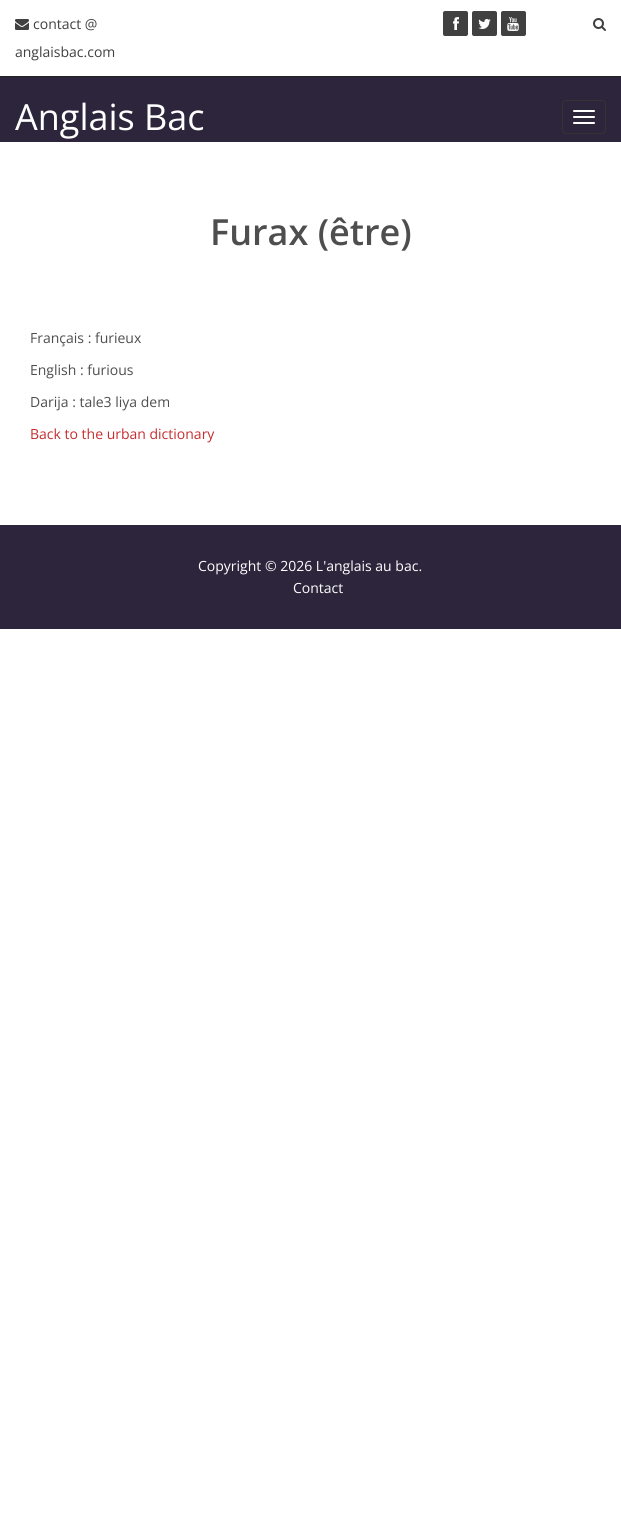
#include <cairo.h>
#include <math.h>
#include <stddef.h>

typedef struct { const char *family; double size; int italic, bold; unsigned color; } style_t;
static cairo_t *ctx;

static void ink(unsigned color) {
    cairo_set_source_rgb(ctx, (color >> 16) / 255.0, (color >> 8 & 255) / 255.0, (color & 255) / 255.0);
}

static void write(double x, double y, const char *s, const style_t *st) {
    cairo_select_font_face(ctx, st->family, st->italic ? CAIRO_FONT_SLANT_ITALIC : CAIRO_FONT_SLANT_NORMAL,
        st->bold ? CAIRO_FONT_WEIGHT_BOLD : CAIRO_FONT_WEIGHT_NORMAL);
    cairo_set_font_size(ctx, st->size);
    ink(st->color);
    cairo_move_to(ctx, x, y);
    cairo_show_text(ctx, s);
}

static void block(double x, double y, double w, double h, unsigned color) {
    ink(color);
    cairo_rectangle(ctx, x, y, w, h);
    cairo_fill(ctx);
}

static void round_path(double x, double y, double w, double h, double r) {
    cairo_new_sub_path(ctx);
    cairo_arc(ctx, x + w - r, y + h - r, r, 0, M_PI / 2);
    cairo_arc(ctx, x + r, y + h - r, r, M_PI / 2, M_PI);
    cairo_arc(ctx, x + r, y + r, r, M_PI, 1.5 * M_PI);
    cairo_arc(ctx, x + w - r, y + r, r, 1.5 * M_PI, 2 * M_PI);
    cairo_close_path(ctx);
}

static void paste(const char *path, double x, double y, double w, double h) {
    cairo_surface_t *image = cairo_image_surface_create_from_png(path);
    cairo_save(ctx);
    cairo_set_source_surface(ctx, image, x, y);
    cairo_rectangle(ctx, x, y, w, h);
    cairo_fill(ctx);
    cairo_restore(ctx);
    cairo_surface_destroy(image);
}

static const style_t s1 = {"Open Sans", 14, 0, 0, 0x404040};
static const style_t s2 = {"Open Sans", 36, 0, 0, 0xffffff};
static const style_t s3 = {"Open Sans SemiBold", 36, 0, 0, 0x4e4e4e};
static const style_t s4 = {"Open Sans", 14, 0, 0, 0x4e4e4e};
static const style_t s5 = {"Open Sans", 14, 0, 0, 0xc52d2f};
static const style_t s6 = {"Open Sans", 14, 0, 0, 0xffffff};

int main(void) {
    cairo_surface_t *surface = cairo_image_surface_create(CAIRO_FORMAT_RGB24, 621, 1526);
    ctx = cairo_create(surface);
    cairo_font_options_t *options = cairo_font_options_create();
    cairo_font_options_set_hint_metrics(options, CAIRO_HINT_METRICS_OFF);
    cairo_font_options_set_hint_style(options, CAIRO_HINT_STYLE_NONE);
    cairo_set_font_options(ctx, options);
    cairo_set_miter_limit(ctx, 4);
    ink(0xffffff);
    cairo_paint(ctx);
    block(0, 76, 621, 1, 0x222222);
    paste("pic1.png", 15, 19, 14, 11);
    write(33, 29, "contact @", &s1);
    write(15, 57, "anglaisbac.com", &s1);
    round_path(443, 11, 25, 25, 2);
    cairo_fill(ctx);
    paste("pic2.png", 453, 17, 6, 13);
    round_path(472, 11, 25, 25, 2);
    cairo_fill(ctx);
    paste("pic3.png", 478, 19, 13, 10);
    round_path(501, 11, 25, 25, 2);
    cairo_fill(ctx);
    paste("pic4.png", 507, 17, 12, 14);
    paste("pic5.png", 593, 18, 13, 13);
    block(0, 77, 621, 65, 0x2d253c);
    write(15, 130, "Anglais Bac", &s2);
    round_path(562.5, 100.5, 43, 33, 3.5);
    ink(0x333333);
    cairo_set_line_width(ctx, 1);
    cairo_stroke(ctx);
    ink(0xffffff);
    round_path(573, 110, 22, 2, 1);
    cairo_fill(ctx);
    round_path(573, 116, 22, 2, 1);
    cairo_fill(ctx);
    round_path(573, 122, 22, 2, 1);
    cairo_fill(ctx);
    write(210, 245, "Furax (être)", &s3);
    write(30, 343, "Français : furieux", &s4);
    write(30, 375, "English : furious", &s4);
    write(30, 407, "Darija : tale3 liya dem", &s4);
    write(30, 439, "Back to the urban dictionary", &s5);
    block(0, 525, 621, 104, 0x2d253c);
    write(198, 571, "Copyright © 2026 L'anglais au bac.", &s6);
    write(293, 593, "Contact", &s6);
    cairo_surface_write_to_png(surface, "screenshot.png");
    cairo_font_options_destroy(options);
    cairo_destroy(ctx);
    cairo_surface_destroy(surface);
    return 0;
}
